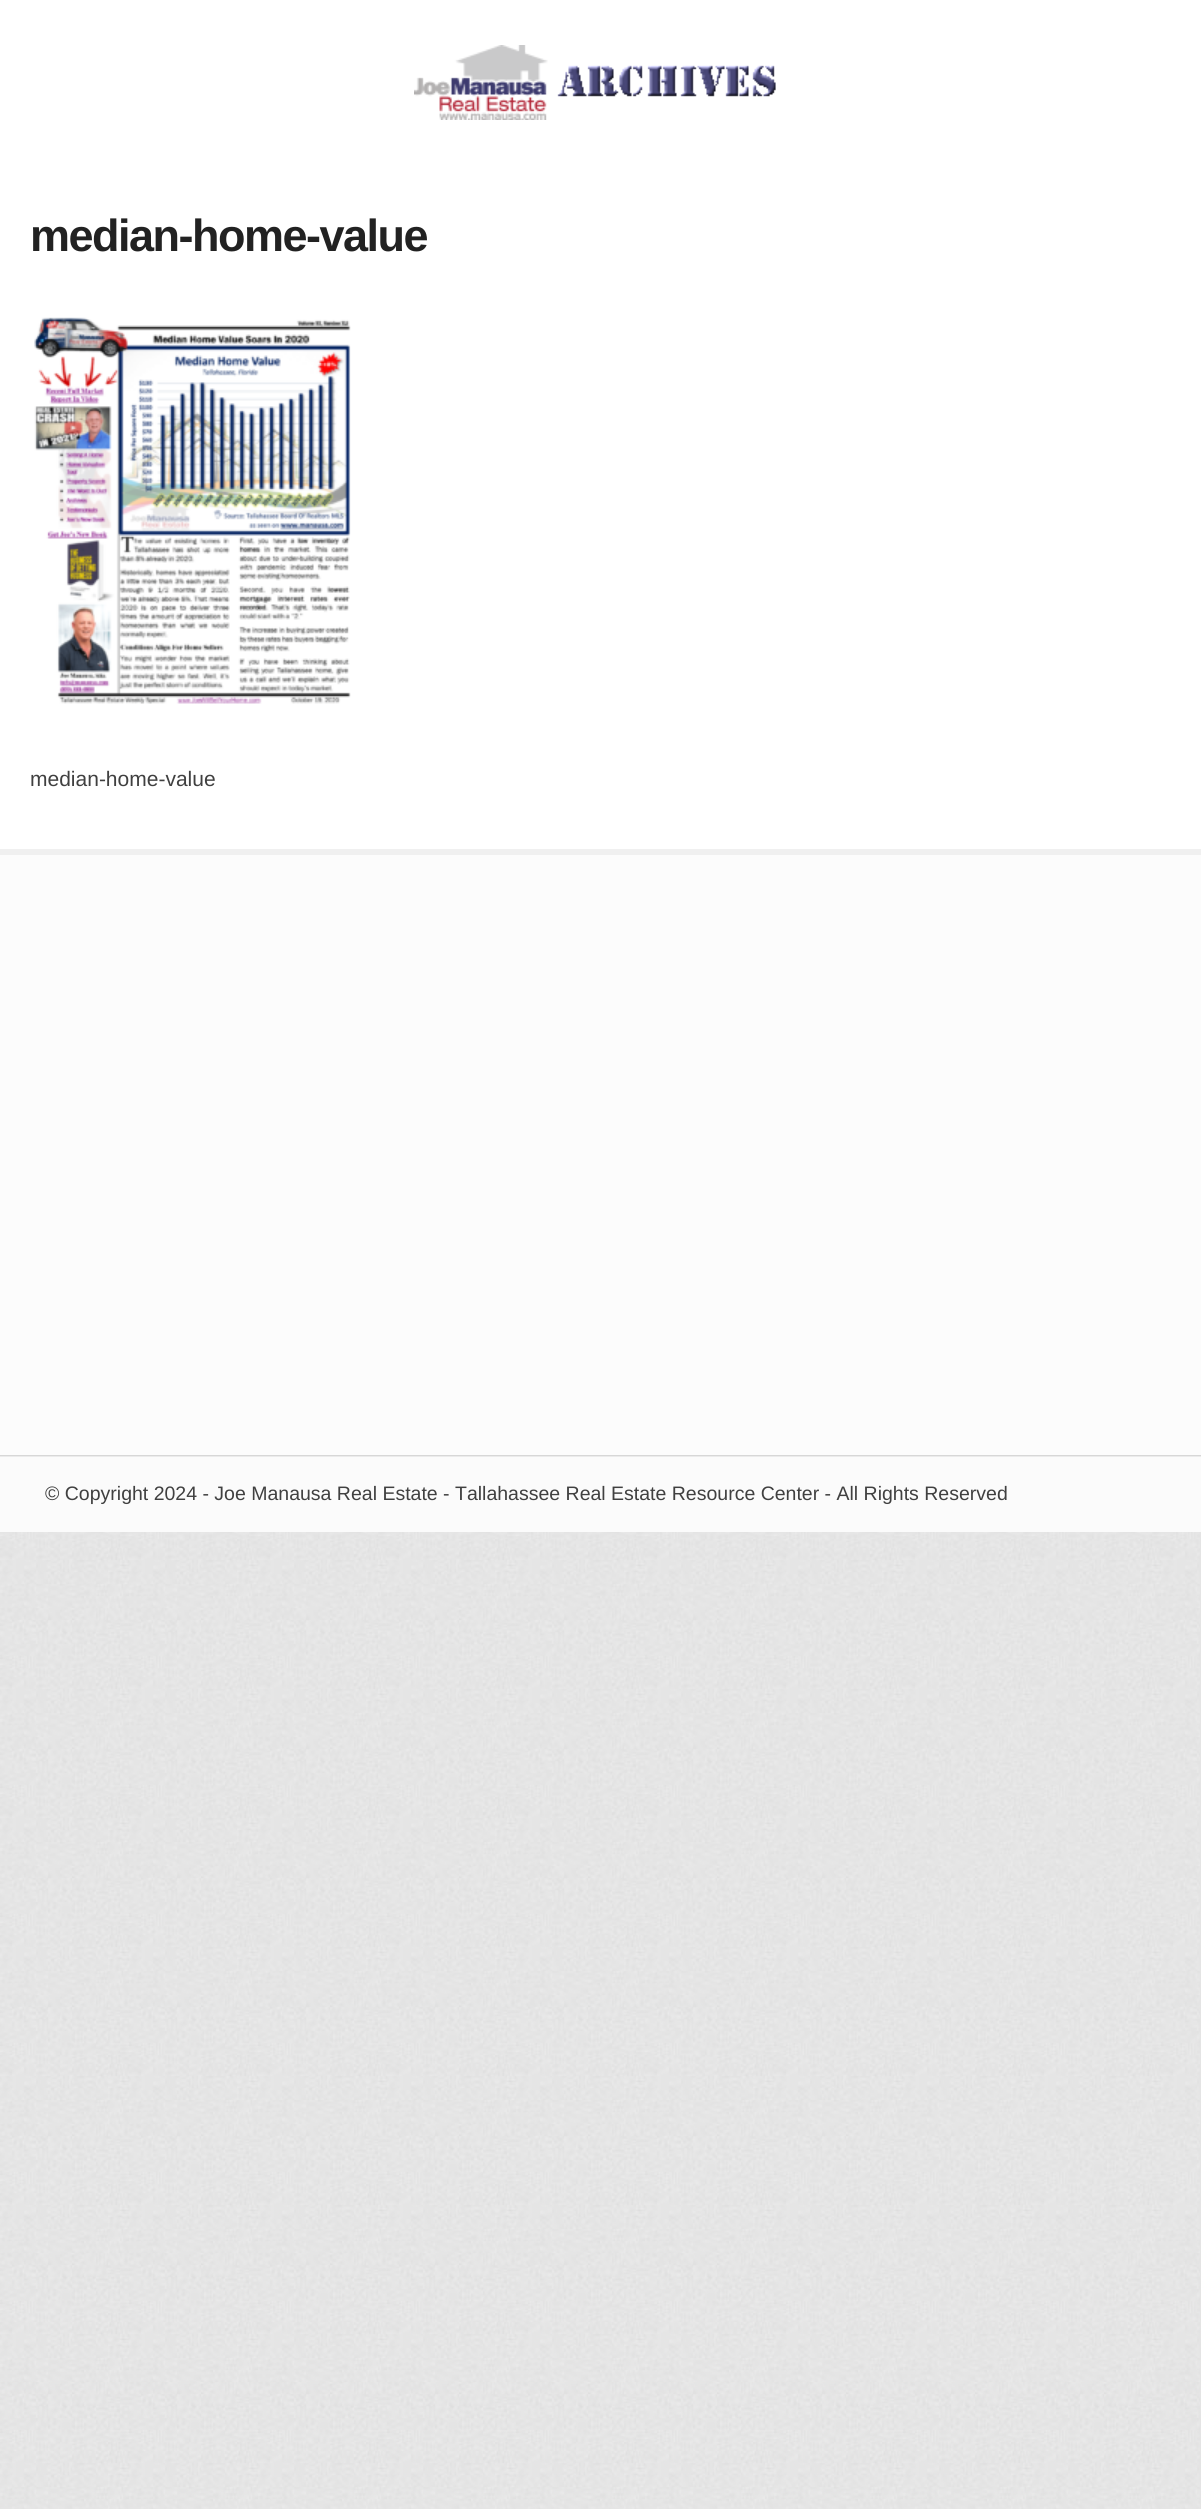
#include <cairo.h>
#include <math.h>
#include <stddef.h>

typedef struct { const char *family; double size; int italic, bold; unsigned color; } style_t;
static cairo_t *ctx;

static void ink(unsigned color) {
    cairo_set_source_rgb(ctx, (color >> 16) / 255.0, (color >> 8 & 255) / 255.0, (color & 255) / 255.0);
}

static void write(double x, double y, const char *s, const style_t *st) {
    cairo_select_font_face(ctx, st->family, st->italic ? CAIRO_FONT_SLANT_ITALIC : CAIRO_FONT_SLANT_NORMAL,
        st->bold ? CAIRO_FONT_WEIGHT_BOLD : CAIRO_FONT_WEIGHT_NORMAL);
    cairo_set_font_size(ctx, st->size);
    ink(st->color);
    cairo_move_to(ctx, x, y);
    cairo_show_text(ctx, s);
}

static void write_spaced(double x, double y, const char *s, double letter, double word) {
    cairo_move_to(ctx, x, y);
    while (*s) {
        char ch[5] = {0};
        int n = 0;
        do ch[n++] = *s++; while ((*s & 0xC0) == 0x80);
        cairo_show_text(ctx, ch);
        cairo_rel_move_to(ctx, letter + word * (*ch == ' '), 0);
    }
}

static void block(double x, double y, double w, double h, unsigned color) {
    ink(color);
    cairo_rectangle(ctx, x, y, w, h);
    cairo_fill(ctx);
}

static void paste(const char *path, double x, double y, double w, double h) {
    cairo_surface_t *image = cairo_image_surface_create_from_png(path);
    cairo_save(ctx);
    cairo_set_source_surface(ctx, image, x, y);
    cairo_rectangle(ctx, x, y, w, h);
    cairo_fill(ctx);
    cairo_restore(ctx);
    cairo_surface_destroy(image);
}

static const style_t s1 = {"Liberation Sans", 21, 0, 0, 0x404040};
static const style_t s2 = {"Liberation Sans", 19.5, 0, 0, 0x404040};

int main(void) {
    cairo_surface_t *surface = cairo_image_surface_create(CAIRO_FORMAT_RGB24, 1201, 2509);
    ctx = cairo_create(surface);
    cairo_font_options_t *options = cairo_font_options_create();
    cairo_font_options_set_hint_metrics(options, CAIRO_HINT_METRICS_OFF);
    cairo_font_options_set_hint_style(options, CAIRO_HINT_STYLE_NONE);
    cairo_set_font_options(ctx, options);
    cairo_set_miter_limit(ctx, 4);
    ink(0xe4e4e4);
    cairo_paint(ctx);
    paste("pic1.png", 0, 1532, 1200, 977);
    block(0, 0, 1201, 849, 0xffffff);
    paste("pic2.png", 414, 45, 362, 75);
    cairo_select_font_face(ctx, "Liberation Sans", CAIRO_FONT_SLANT_NORMAL, CAIRO_FONT_WEIGHT_BOLD);
    cairo_set_font_size(ctx, 45);
    ink(0x222222);
    write_spaced(30, 251, "median-home-value", -1.5, 0);
    paste("pic3.png", 34, 317, 317, 387);
    write(30, 786, "median-home-value", &s1);
    block(0, 855, 1201, 600, 0xfcfcfc);
    block(0, 849, 1201, 6, 0xf0f0f0);
    block(0, 1457, 1201, 75, 0xfbfbfb);
    paste("pic4.png", 0, 1455, 1201, 2);
    write(45, 1500, "© Copyright 2024 - Joe Manausa Real Estate - Tallahassee Real Estate Resource Center - All Rights Reserved", &s2);
    cairo_surface_write_to_png(surface, "screenshot.png");
    cairo_font_options_destroy(options);
    cairo_destroy(ctx);
    cairo_surface_destroy(surface);
    return 0;
}
